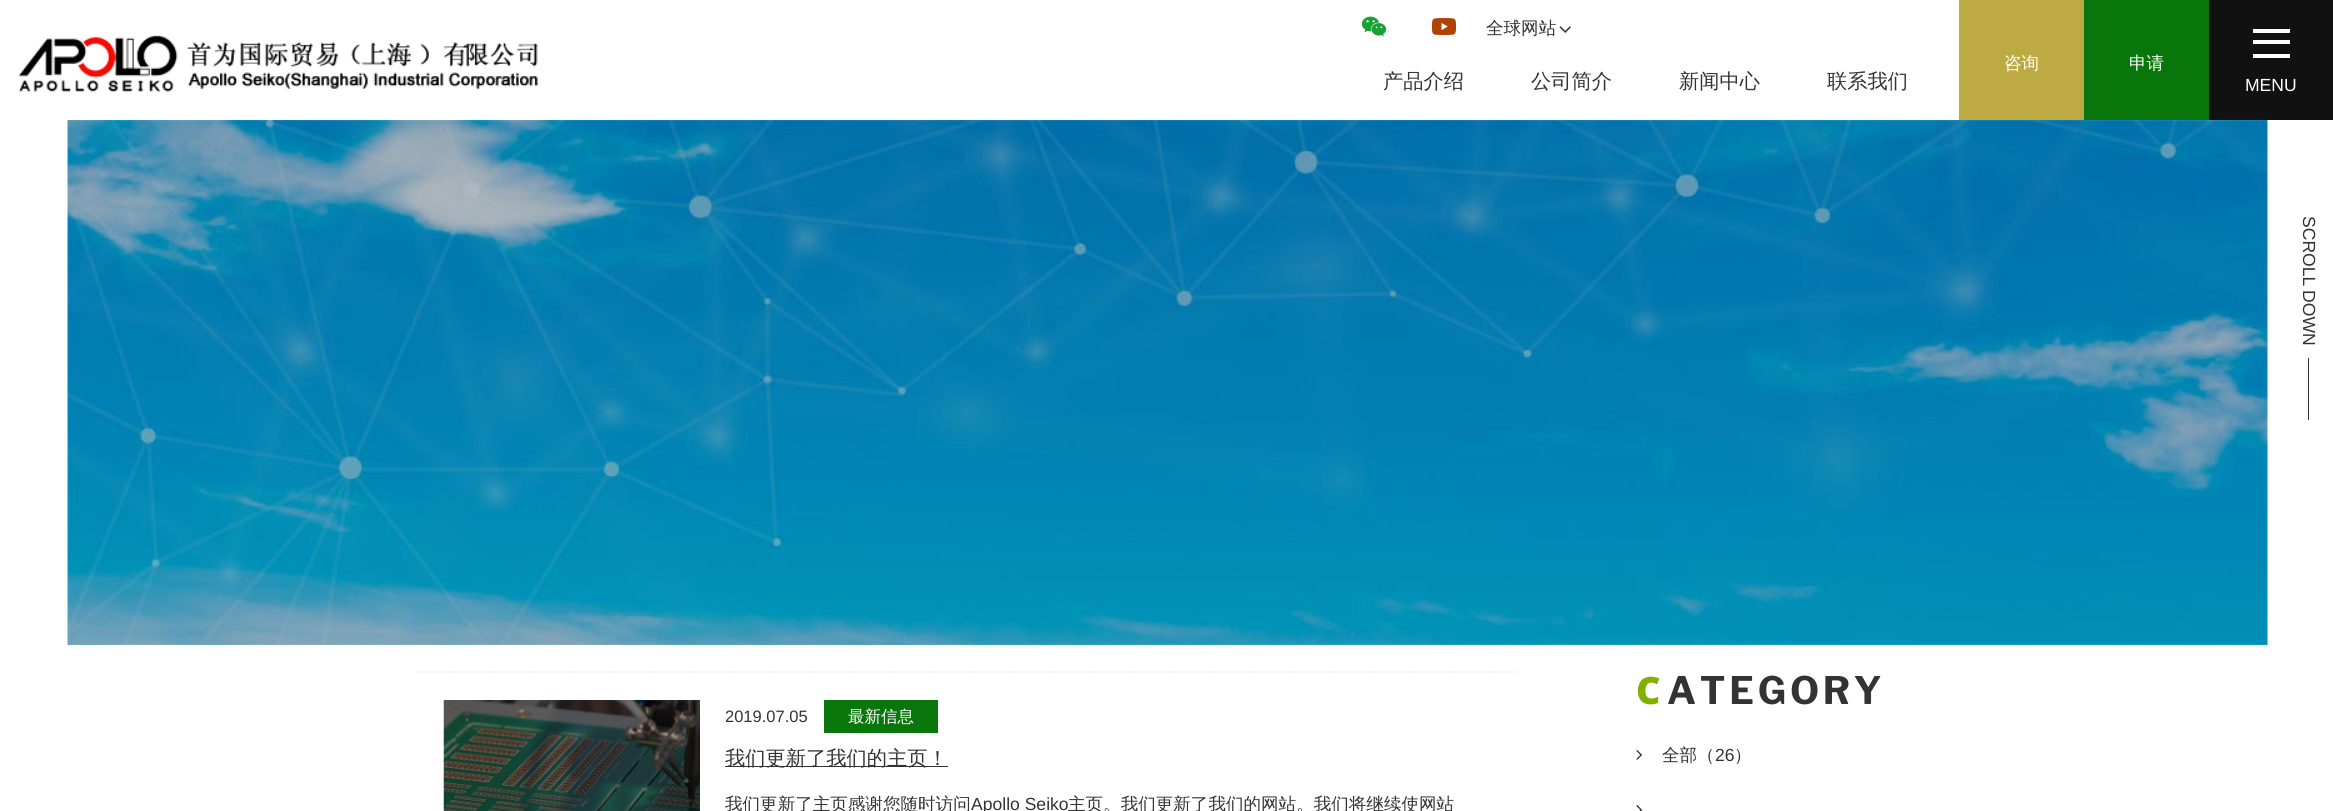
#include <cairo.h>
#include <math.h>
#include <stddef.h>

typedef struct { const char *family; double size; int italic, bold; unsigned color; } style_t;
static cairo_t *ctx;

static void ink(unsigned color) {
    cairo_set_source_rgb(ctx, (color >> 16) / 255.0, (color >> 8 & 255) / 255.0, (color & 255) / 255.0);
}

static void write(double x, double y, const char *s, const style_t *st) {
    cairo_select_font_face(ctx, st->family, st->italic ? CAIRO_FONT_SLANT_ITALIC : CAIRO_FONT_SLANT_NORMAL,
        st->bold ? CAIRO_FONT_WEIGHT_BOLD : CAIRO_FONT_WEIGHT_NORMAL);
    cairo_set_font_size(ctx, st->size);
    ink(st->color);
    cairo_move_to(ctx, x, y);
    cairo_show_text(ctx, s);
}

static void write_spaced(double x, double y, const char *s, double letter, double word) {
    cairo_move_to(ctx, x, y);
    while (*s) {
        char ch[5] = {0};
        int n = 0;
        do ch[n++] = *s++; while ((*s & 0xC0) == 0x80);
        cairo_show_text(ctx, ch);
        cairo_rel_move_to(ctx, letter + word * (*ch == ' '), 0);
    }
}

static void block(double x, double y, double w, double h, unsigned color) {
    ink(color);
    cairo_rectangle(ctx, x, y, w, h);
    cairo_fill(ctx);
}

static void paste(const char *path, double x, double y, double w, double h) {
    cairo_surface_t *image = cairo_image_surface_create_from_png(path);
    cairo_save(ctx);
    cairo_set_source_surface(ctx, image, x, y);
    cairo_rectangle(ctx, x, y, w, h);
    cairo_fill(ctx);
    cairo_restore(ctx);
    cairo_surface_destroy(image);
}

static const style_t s1 = {"WenQuanYi Zen Hei Medium", 17.55, 0, 0, 0x333333};
static const style_t s2 = {"WenQuanYi Zen Hei Medium", 20.25, 0, 0, 0x333333};
static const style_t s3 = {"WenQuanYi Zen Hei Medium", 17.55, 0, 0, 0xffffff};
static const style_t s4 = {"Liberation Sans", 17.55, 0, 0, 0xffffff};
static const style_t s5 = {"Liberation Sans", 16.5, 0, 0, 0x333333};
static const style_t s6 = {"WenQuanYi Zen Hei Medium", 16.5, 0, 0, 0xffffff};
static const style_t s7 = {"Liberation Sans", 17.55, 0, 0, 0x333333};

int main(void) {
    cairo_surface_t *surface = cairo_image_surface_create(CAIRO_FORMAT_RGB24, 2333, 811);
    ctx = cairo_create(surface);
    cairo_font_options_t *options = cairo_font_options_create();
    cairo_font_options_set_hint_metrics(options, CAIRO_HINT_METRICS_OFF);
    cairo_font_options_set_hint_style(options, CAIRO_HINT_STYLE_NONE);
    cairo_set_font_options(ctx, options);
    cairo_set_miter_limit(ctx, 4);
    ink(0xffffff);
    cairo_paint(ctx);
    paste("pic1.png", 18, 35, 520, 57);
    paste("pic2.png", 1361, 16, 26, 21);
    paste("pic3.png", 1431, 18, 26, 17);
    write(1486, 34, "全球网站", &s1);
    paste("pic4.png", 1559, 26, 12, 7);
    write(1383, 88, "产品介绍", &s2);
    write(1531, 88, "公司简介", &s2);
    write(1679, 88, "新闻中心", &s2);
    write(1827, 88, "联系我们", &s2);
    block(1959, 0, 125, 120, 0xbeaa42);
    write(2004, 69, "咨询", &s3);
    block(2084, 0, 125, 120, 0x08760b);
    write(2129, 69, "申请", &s3);
    block(2209, 0, 124, 120, 0x111111);
    block(2253, 54, 37, 4, 0xffffff);
    block(2253, 29, 37, 4, 0xffffff);
    block(2253, 40, 37, 4, 0xffffff);
    write(2245, 91, "MENU", &s4);
    ink(0x333333);
    cairo_save(ctx);
    cairo_translate(ctx, 2303, 216);
    cairo_rotate(ctx, 90 * M_PI / 180);
    write_spaced(0, 0, "SCROLL DOWN", 0, -1);
    cairo_restore(ctx);
    block(2308, 358, 1, 62, 0x333333);
    paste("pic5.png", 67, 120, 2201, 525);
    cairo_new_path(ctx);
    cairo_move_to(ctx, 417.5, 672);
    cairo_line_to(ctx, 1516, 672);
    ink(0xe3e3e3);
    cairo_set_line_width(ctx, 1.2);
    cairo_set_dash(ctx, (double[]){1.25, 1.25}, 2, 0);
    cairo_stroke(ctx);
    paste("pic6.png", 443, 700, 257, 111);
    write(725, 722, "2019.07.05", &s5);
    block(824, 700, 114, 33, 0x08760b);
    write(848, 722, "最新信息", &s6);
    block(725, 766, 223, 1, 0x333333);
    write(725, 765, "我们更新了我们的主页！", &s2);
    write(725, 810, "我们更新了主页感谢您随时访问", &s1);
    write(971, 810, "Apollo Seiko", &s7);
    write(1068, 810, "主页。我们更新了我们的网站。我们将继续使网站", &s1);
    cairo_select_font_face(ctx, "Noto Sans Black", CAIRO_FONT_SLANT_NORMAL, CAIRO_FONT_WEIGHT_NORMAL);
    cairo_set_font_size(ctx, 37.75);
    ink(0x83b000);
    write_spaced(1636, 704, "C", 3.75, 0);
    cairo_select_font_face(ctx, "Libre Franklin Thin", CAIRO_FONT_SLANT_NORMAL, CAIRO_FONT_WEIGHT_NORMAL);
    ink(0x333333);
    write_spaced(1667, 704, "ATEGORY", 3.75, 0);
    paste("pic7.png", 1636, 750, 6, 10);
    write(1662, 761, "全部（", &s1);
    write(1715, 761, "26", &s7);
    write(1734, 761, "）", &s1);
    paste("pic8.png", 1636, 805, 6, 6);
    cairo_surface_write_to_png(surface, "screenshot.png");
    cairo_font_options_destroy(options);
    cairo_destroy(ctx);
    cairo_surface_destroy(surface);
    return 0;
}
